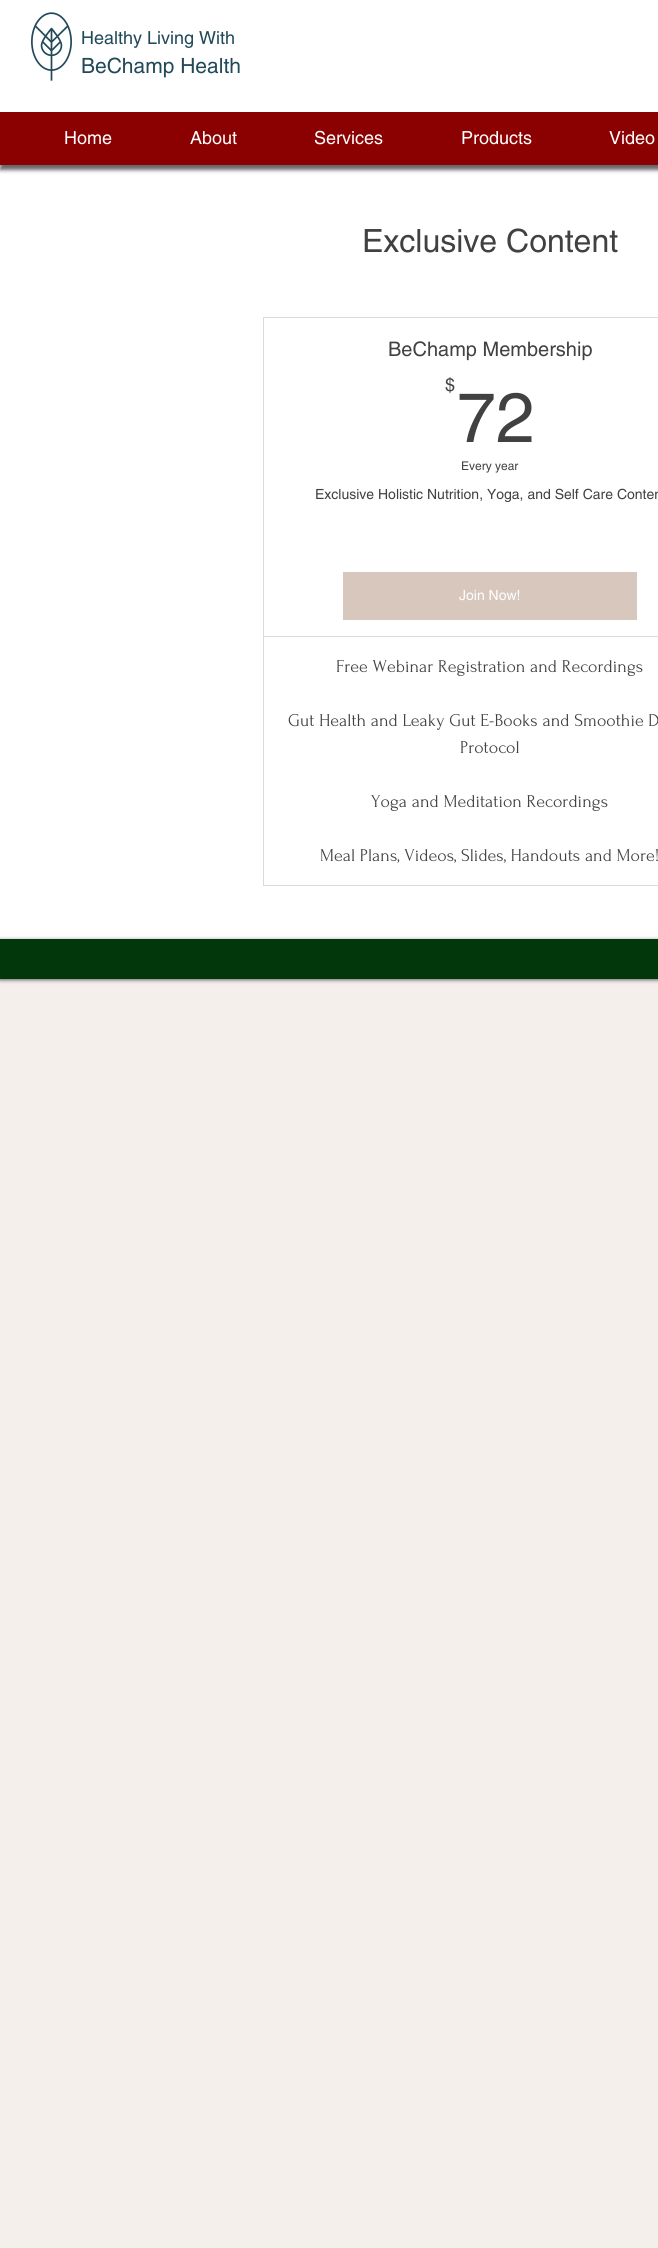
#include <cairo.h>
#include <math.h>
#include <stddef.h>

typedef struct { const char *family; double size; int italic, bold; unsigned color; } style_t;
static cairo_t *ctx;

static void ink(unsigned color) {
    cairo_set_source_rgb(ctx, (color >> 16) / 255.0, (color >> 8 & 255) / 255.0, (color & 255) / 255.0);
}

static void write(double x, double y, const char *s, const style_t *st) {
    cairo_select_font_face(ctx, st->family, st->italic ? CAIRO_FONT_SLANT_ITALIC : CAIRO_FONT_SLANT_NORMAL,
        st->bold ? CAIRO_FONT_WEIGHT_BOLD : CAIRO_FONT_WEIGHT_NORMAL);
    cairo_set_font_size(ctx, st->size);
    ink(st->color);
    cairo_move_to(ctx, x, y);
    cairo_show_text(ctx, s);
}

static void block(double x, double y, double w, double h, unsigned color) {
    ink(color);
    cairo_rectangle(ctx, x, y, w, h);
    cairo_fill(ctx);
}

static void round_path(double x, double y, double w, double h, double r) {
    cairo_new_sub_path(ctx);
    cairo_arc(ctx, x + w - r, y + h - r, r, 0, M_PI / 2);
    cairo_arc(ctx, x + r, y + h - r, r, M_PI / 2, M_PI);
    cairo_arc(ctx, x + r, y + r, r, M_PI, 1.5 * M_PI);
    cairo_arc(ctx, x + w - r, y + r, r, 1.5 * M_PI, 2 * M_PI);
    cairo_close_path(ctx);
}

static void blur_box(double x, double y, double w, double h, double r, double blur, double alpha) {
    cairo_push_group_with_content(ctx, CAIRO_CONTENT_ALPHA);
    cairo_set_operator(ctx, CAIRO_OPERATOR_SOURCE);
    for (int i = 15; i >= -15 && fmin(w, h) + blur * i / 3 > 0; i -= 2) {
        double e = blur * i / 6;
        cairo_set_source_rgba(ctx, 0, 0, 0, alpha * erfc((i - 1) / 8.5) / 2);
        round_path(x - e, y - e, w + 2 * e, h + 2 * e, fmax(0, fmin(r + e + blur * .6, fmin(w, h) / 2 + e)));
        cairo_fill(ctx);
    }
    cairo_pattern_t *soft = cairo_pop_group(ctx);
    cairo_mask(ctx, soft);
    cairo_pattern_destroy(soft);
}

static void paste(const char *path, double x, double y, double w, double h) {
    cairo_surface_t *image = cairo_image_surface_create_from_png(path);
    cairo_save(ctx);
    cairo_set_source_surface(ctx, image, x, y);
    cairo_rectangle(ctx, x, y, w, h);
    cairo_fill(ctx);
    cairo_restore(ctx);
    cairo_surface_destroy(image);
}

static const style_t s1 = {"helvetica", 18, 0, 0, 0x22495a};
static const style_t s2 = {"helvetica", 21, 0, 0, 0x22495a};
static const style_t s3 = {"helvetica", 18, 0, 0, 0xffffff};
static const style_t s4 = {"helvetica", 32, 0, 0, 0x414141};
static const style_t s5 = {"helvetica", 20, 0, 0, 0x414141};
static const style_t s6 = {"helvetica", 18, 0, 0, 0x414141};
static const style_t s7 = {"helvetica", 70, 0, 0, 0x414141};
static const style_t s8 = {"helvetica", 12, 0, 0, 0x414141};
static const style_t s9 = {"helvetica", 14, 0, 0, 0x414141};
static const style_t s10 = {"helvetica", 14, 0, 0, 0xffffff};
static const style_t s11 = {"Forum", 18, 0, 0, 0x414141};

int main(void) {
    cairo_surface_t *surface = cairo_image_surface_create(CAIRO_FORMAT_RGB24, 658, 2248);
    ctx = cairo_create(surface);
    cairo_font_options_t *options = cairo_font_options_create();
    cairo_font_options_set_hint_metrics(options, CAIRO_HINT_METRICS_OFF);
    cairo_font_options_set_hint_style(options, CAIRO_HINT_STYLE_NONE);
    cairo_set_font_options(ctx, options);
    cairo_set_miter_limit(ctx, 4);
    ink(0xf4efeb);
    cairo_paint(ctx);
    block(0, 0, 658, 112, 0xffffff);
    paste("pic1.png", 31, 12, 41, 69);
    write(81, 44, "Healthy Living With", &s1);
    write(81, 73, "BeChamp Health", &s2);
    block(0, 165, 658, 774, 0xffffff);
    ink(0x000000);
    blur_box(0, 117, 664, 53, 0, 2, 0.6);
    block(0, 112, 658, 53, 0x8b0000);
    write(64, 144, "Home", &s3);
    write(190, 144, "About", &s3);
    write(314, 144, "Services", &s3);
    write(461, 144, "Products", &s3);
    write(609, 144, "Video", &s3);
    write(362, 252, "Exclusive Content", &s4);
    cairo_rectangle(ctx, 263.5, 317.5, 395, 568);
    ink(0xd9d9d9);
    cairo_set_line_width(ctx, 1);
    cairo_stroke(ctx);
    write(388, 356, "BeChamp Membership", &s5);
    write(445, 391, "$", &s6);
    write(457, 442, "72", &s7);
    write(461, 470, "Every year", &s8);
    write(315, 499, "Exclusive Holistic Nutrition, Yoga, and Self Care Conten", &s9);
    block(343, 572, 294, 48, 0xd8c7bd);
    write(459, 600, "Join Now!", &s10);
    block(264, 636, 394, 1, 0xd9d9d9);
    write(336, 672, "Free Webinar Registration and Recordings", &s11);
    write(288, 726, "Gut Health and Leaky Gut E-Books and Smoothie D", &s11);
    write(460, 753, "Protocol", &s11);
    write(371, 807, "Yoga and Meditation Recordings", &s11);
    write(320, 861, "Meal Plans, Videos, Slides, Handouts and More!", &s11);
    ink(0x000000);
    blur_box(0, 940, 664, 40, 0, 2, 0.6);
    block(0, 939, 658, 40, 0x02370c);
    cairo_surface_write_to_png(surface, "screenshot.png");
    cairo_font_options_destroy(options);
    cairo_destroy(ctx);
    cairo_surface_destroy(surface);
    return 0;
}
